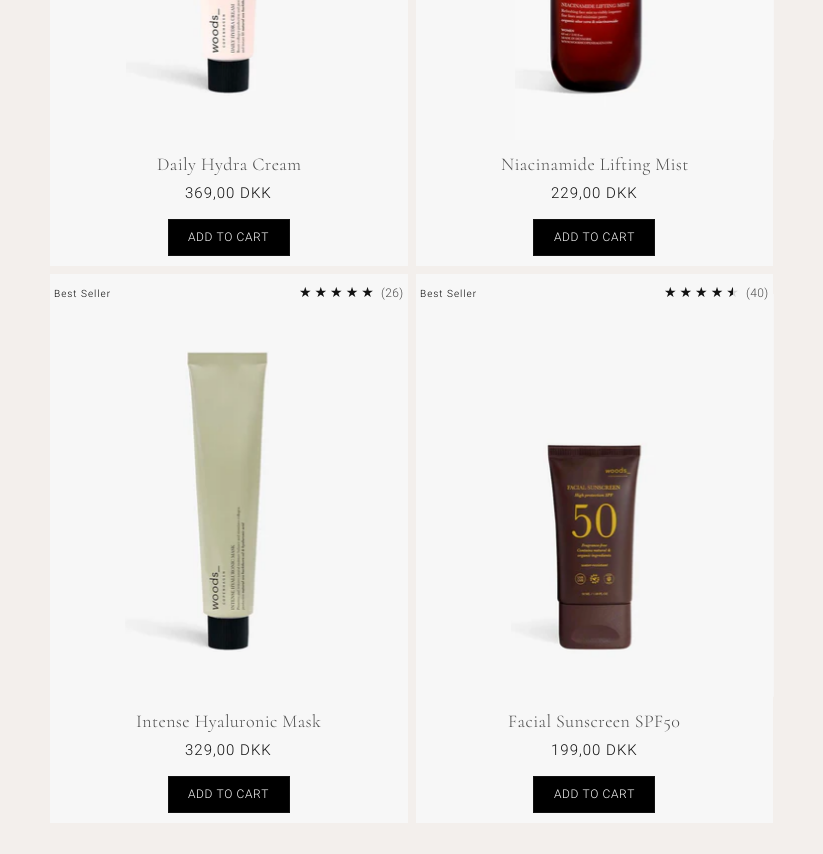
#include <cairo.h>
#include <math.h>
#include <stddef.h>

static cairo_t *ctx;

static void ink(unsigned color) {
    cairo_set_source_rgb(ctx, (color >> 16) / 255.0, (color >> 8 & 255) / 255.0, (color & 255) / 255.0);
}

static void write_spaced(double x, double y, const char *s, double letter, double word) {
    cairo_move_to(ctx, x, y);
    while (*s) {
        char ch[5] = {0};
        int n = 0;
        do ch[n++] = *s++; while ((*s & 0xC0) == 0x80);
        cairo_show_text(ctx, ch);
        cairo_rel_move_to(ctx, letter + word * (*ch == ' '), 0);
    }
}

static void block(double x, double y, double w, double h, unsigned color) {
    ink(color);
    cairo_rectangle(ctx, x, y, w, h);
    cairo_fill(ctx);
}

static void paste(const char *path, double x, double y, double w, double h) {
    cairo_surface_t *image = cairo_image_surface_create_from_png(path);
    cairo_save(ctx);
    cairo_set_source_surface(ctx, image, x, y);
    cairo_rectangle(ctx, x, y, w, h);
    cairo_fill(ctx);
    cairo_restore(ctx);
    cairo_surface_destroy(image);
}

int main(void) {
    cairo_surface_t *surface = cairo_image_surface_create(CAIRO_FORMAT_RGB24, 823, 854);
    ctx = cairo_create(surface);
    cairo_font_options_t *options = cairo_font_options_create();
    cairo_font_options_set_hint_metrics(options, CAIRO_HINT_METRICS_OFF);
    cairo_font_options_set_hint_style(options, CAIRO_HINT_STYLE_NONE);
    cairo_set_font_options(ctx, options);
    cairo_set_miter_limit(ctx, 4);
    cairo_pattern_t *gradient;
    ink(0xf3efec);
    cairo_paint(ctx);
    block(50, 0, 358, 266, 0xf7f7f7);
    paste("pic1.png", 126, 0, 131, 96);
    cairo_select_font_face(ctx, "Cormorant Light", CAIRO_FONT_SLANT_NORMAL, CAIRO_FONT_WEIGHT_NORMAL);
    cairo_set_font_size(ctx, 18);
    ink(0x4b4b4b);
    write_spaced(157, 170, "Daily Hydra Cream", 0.4, 0);
    cairo_select_font_face(ctx, "Roboto Light", CAIRO_FONT_SLANT_NORMAL, CAIRO_FONT_WEIGHT_NORMAL);
    cairo_set_font_size(ctx, 15);
    ink(0x121212);
    write_spaced(185, 198, "369,00 DKK", 1, 0);
    block(169, 220, 120, 35, 0x000000);
    cairo_rectangle(ctx, 168.5, 219.5, 121, 36);
    ink(0x121212);
    cairo_set_line_width(ctx, 1);
    cairo_stroke(ctx);
    cairo_set_font_size(ctx, 12);
    ink(0xffffff);
    write_spaced(188, 241, "ADD TO CART", 0.6, 0);
    block(416, 0, 357, 266, 0xf7f7f7);
    paste("pic2.png", 515, 0, 259, 140);
    cairo_select_font_face(ctx, "Cormorant Light", CAIRO_FONT_SLANT_NORMAL, CAIRO_FONT_WEIGHT_NORMAL);
    cairo_set_font_size(ctx, 18);
    ink(0x4b4b4b);
    write_spaced(501, 170, "Niacinamide Lifting Mist", 0.4, 0);
    cairo_select_font_face(ctx, "Roboto Light", CAIRO_FONT_SLANT_NORMAL, CAIRO_FONT_WEIGHT_NORMAL);
    cairo_set_font_size(ctx, 15);
    ink(0x121212);
    write_spaced(551, 198, "229,00 DKK", 1, 0);
    block(534, 220, 120, 35, 0x000000);
    cairo_rectangle(ctx, 533.5, 219.5, 121, 36);
    ink(0x121212);
    cairo_stroke(ctx);
    cairo_set_font_size(ctx, 12);
    ink(0xffffff);
    write_spaced(554, 241, "ADD TO CART", 0.6, 0);
    block(50, 274, 358, 549, 0xf7f7f7);
    cairo_set_font_size(ctx, 10);
    ink(0x000000);
    write_spaced(54, 297, "Best Seller", 1, 0);
    cairo_select_font_face(ctx, "DejaVu Sans", CAIRO_FONT_SLANT_NORMAL, CAIRO_FONT_WEIGHT_NORMAL);
    cairo_set_font_size(ctx, 14);
    gradient = cairo_pattern_create_linear(299, 292, 376, 292);
    cairo_pattern_add_color_stop_rgba(gradient, 0.96, 0.071, 0.071, 0.071, 1);
    cairo_pattern_add_color_stop_rgba(gradient, 0.96, 0.835, 0.835, 0.835, 1);
    cairo_set_source(ctx, gradient);
    cairo_pattern_destroy(gradient);
    write_spaced(299, 297, "★★★★★", 3, 0);
    cairo_select_font_face(ctx, "Roboto Light", CAIRO_FONT_SLANT_NORMAL, CAIRO_FONT_WEIGHT_NORMAL);
    cairo_set_font_size(ctx, 12);
    ink(0x4b4b4b);
    write_spaced(381, 297, "(26)", 0.4, 0);
    paste("pic3.png", 125, 351, 144, 301);
    cairo_select_font_face(ctx, "Cormorant Light", CAIRO_FONT_SLANT_NORMAL, CAIRO_FONT_WEIGHT_NORMAL);
    cairo_set_font_size(ctx, 18);
    write_spaced(136, 727, "Intense Hyaluronic Mask", 0.4, 0);
    cairo_select_font_face(ctx, "Roboto Light", CAIRO_FONT_SLANT_NORMAL, CAIRO_FONT_WEIGHT_NORMAL);
    cairo_set_font_size(ctx, 15);
    ink(0x121212);
    write_spaced(185, 755, "329,00 DKK", 1, 0);
    block(169, 777, 120, 35, 0x000000);
    cairo_rectangle(ctx, 168.5, 776.5, 121, 36);
    ink(0x121212);
    cairo_stroke(ctx);
    cairo_set_font_size(ctx, 12);
    ink(0xffffff);
    write_spaced(188, 798, "ADD TO CART", 0.6, 0);
    block(416, 274, 357, 549, 0xf7f7f7);
    cairo_set_font_size(ctx, 10);
    ink(0x000000);
    write_spaced(420, 297, "Best Seller", 1, 0);
    paste("pic4.png", 511, 294, 263, 403);
    cairo_select_font_face(ctx, "DejaVu Sans", CAIRO_FONT_SLANT_NORMAL, CAIRO_FONT_WEIGHT_NORMAL);
    cairo_set_font_size(ctx, 14);
    gradient = cairo_pattern_create_linear(664, 292, 742, 292);
    cairo_pattern_add_color_stop_rgba(gradient, 0.88, 0.071, 0.071, 0.071, 1);
    cairo_pattern_add_color_stop_rgba(gradient, 0.88, 0.835, 0.835, 0.835, 1);
    cairo_set_source(ctx, gradient);
    cairo_pattern_destroy(gradient);
    write_spaced(664, 297, "★★★★★", 3, 0);
    cairo_select_font_face(ctx, "Roboto Light", CAIRO_FONT_SLANT_NORMAL, CAIRO_FONT_WEIGHT_NORMAL);
    cairo_set_font_size(ctx, 12);
    ink(0x4b4b4b);
    write_spaced(746, 297, "(40)", 0.4, 0);
    cairo_select_font_face(ctx, "Cormorant Light", CAIRO_FONT_SLANT_NORMAL, CAIRO_FONT_WEIGHT_NORMAL);
    cairo_set_font_size(ctx, 18);
    write_spaced(508, 727, "Facial Sunscreen SPF50", 0.4, 0);
    cairo_select_font_face(ctx, "Roboto Light", CAIRO_FONT_SLANT_NORMAL, CAIRO_FONT_WEIGHT_NORMAL);
    cairo_set_font_size(ctx, 15);
    ink(0x121212);
    write_spaced(551, 755, "199,00 DKK", 1, 0);
    block(534, 777, 120, 35, 0x000000);
    cairo_rectangle(ctx, 533.5, 776.5, 121, 36);
    ink(0x121212);
    cairo_stroke(ctx);
    cairo_set_font_size(ctx, 12);
    ink(0xffffff);
    write_spaced(554, 798, "ADD TO CART", 0.6, 0);
    cairo_surface_write_to_png(surface, "screenshot.png");
    cairo_font_options_destroy(options);
    cairo_destroy(ctx);
    cairo_surface_destroy(surface);
    return 0;
}
